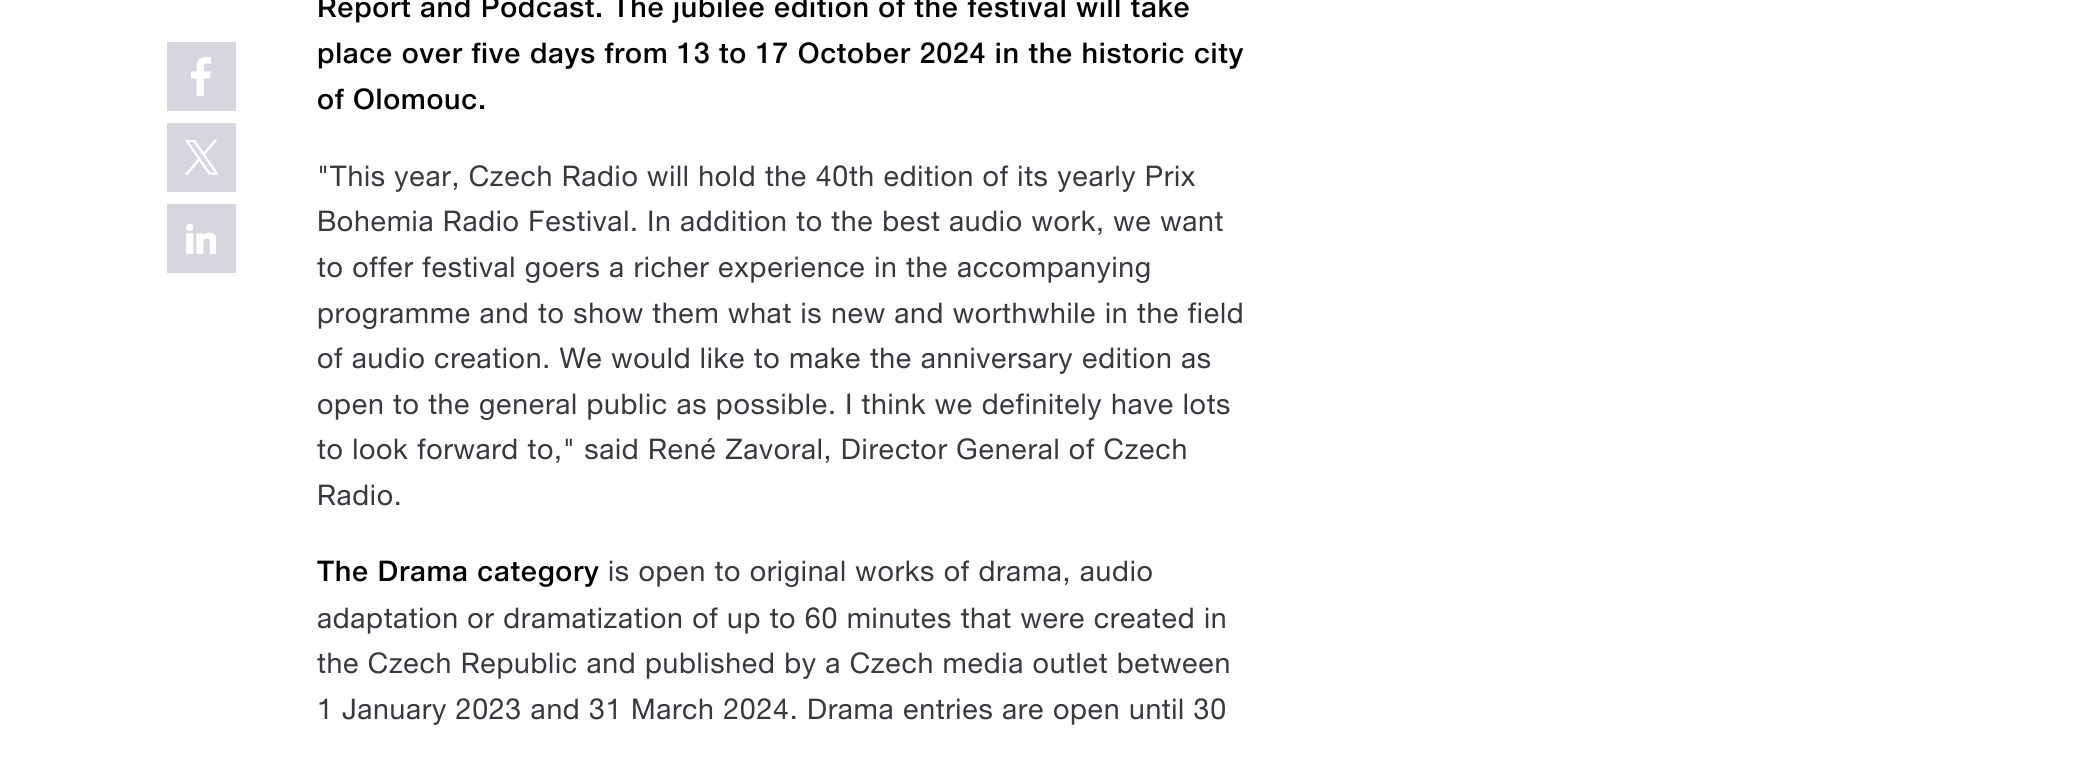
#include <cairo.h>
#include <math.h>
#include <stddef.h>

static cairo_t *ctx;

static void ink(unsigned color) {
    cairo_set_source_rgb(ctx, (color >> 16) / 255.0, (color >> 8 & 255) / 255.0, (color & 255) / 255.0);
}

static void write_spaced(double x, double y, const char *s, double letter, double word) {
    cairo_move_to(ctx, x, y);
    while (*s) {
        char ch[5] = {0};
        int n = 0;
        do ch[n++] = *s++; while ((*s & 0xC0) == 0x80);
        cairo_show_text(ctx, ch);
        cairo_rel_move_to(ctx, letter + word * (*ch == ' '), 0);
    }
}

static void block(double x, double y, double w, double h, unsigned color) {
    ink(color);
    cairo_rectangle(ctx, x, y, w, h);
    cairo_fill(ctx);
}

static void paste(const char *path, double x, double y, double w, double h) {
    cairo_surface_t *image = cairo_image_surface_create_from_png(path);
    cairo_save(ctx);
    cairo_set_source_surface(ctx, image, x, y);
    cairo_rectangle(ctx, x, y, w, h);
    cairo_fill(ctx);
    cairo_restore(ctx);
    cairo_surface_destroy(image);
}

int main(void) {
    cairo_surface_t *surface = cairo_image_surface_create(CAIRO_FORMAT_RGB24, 2088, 757);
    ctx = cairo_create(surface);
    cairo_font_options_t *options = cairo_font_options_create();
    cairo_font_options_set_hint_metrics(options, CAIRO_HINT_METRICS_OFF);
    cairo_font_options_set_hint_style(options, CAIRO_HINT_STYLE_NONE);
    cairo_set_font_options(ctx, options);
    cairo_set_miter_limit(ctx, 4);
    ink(0xffffff);
    cairo_paint(ctx);
    block(167, 42, 69, 69, 0xd7d6de);
    paste("pic1.png", 191, 57, 20, 39);
    block(167, 123, 69, 69, 0xd7d6de);
    paste("pic2.png", 185, 140, 34, 35);
    block(167, 204, 69, 69, 0xd7d6de);
    paste("pic3.png", 186, 224, 30, 30);
    cairo_select_font_face(ctx, "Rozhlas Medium", CAIRO_FONT_SLANT_NORMAL, CAIRO_FONT_WEIGHT_NORMAL);
    cairo_set_font_size(ctx, 28.5);
    ink(0x000000);
    write_spaced(317, 17, "Report and Podcast. The jubilee edition of the festival will take", 0.72, 0);
    write_spaced(317, 63, "place over five days from 13 to 17 October 2024 in the historic city", 0.72, 0);
    write_spaced(317, 109, "of Olomouc.", 0.72, 0);
    cairo_select_font_face(ctx, "Rozhlas", CAIRO_FONT_SLANT_NORMAL, CAIRO_FONT_WEIGHT_NORMAL);
    ink(0x383840);
    write_spaced(317, 186, "\"This year, Czech Radio will hold the 40th edition of its yearly Prix", 0.72, 0);
    write_spaced(317, 231, "Bohemia Radio Festival. In addition to the best audio work, we want", 0.72, 0);
    write_spaced(317, 277, "to offer festival goers a richer experience in the accompanying", 0.72, 0);
    write_spaced(317, 323, "programme and to show them what is new and worthwhile in the field", 0.72, 0);
    write_spaced(317, 368, "of audio creation. We would like to make the anniversary edition as", 0.72, 0);
    write_spaced(317, 414, "open to the general public as possible. I think we definitely have lots", 0.72, 0);
    write_spaced(317, 459, "to look forward to,\" said René Zavoral, Director General of Czech", 0.72, 0);
    write_spaced(317, 505, "Radio.", 0.72, 0);
    cairo_select_font_face(ctx, "Rozhlas Medium", CAIRO_FONT_SLANT_NORMAL, CAIRO_FONT_WEIGHT_NORMAL);
    ink(0x000000);
    write_spaced(317, 581, "The Drama category", 0.72, 0);
    cairo_select_font_face(ctx, "Rozhlas", CAIRO_FONT_SLANT_NORMAL, CAIRO_FONT_WEIGHT_NORMAL);
    ink(0x383840);
    write_spaced(608, 581, "is open to original works of drama, audio", 0.72, 0);
    write_spaced(317, 628, "adaptation or dramatization of up to 60 minutes that were created in", 0.72, 0);
    write_spaced(317, 673, "the Czech Republic and published by a Czech media outlet between", 0.72, 0);
    write_spaced(317, 719, "1 January 2023 and 31 March 2024. Drama entries are open until 30", 0.72, 0);
    cairo_surface_write_to_png(surface, "screenshot.png");
    cairo_font_options_destroy(options);
    cairo_destroy(ctx);
    cairo_surface_destroy(surface);
    return 0;
}
